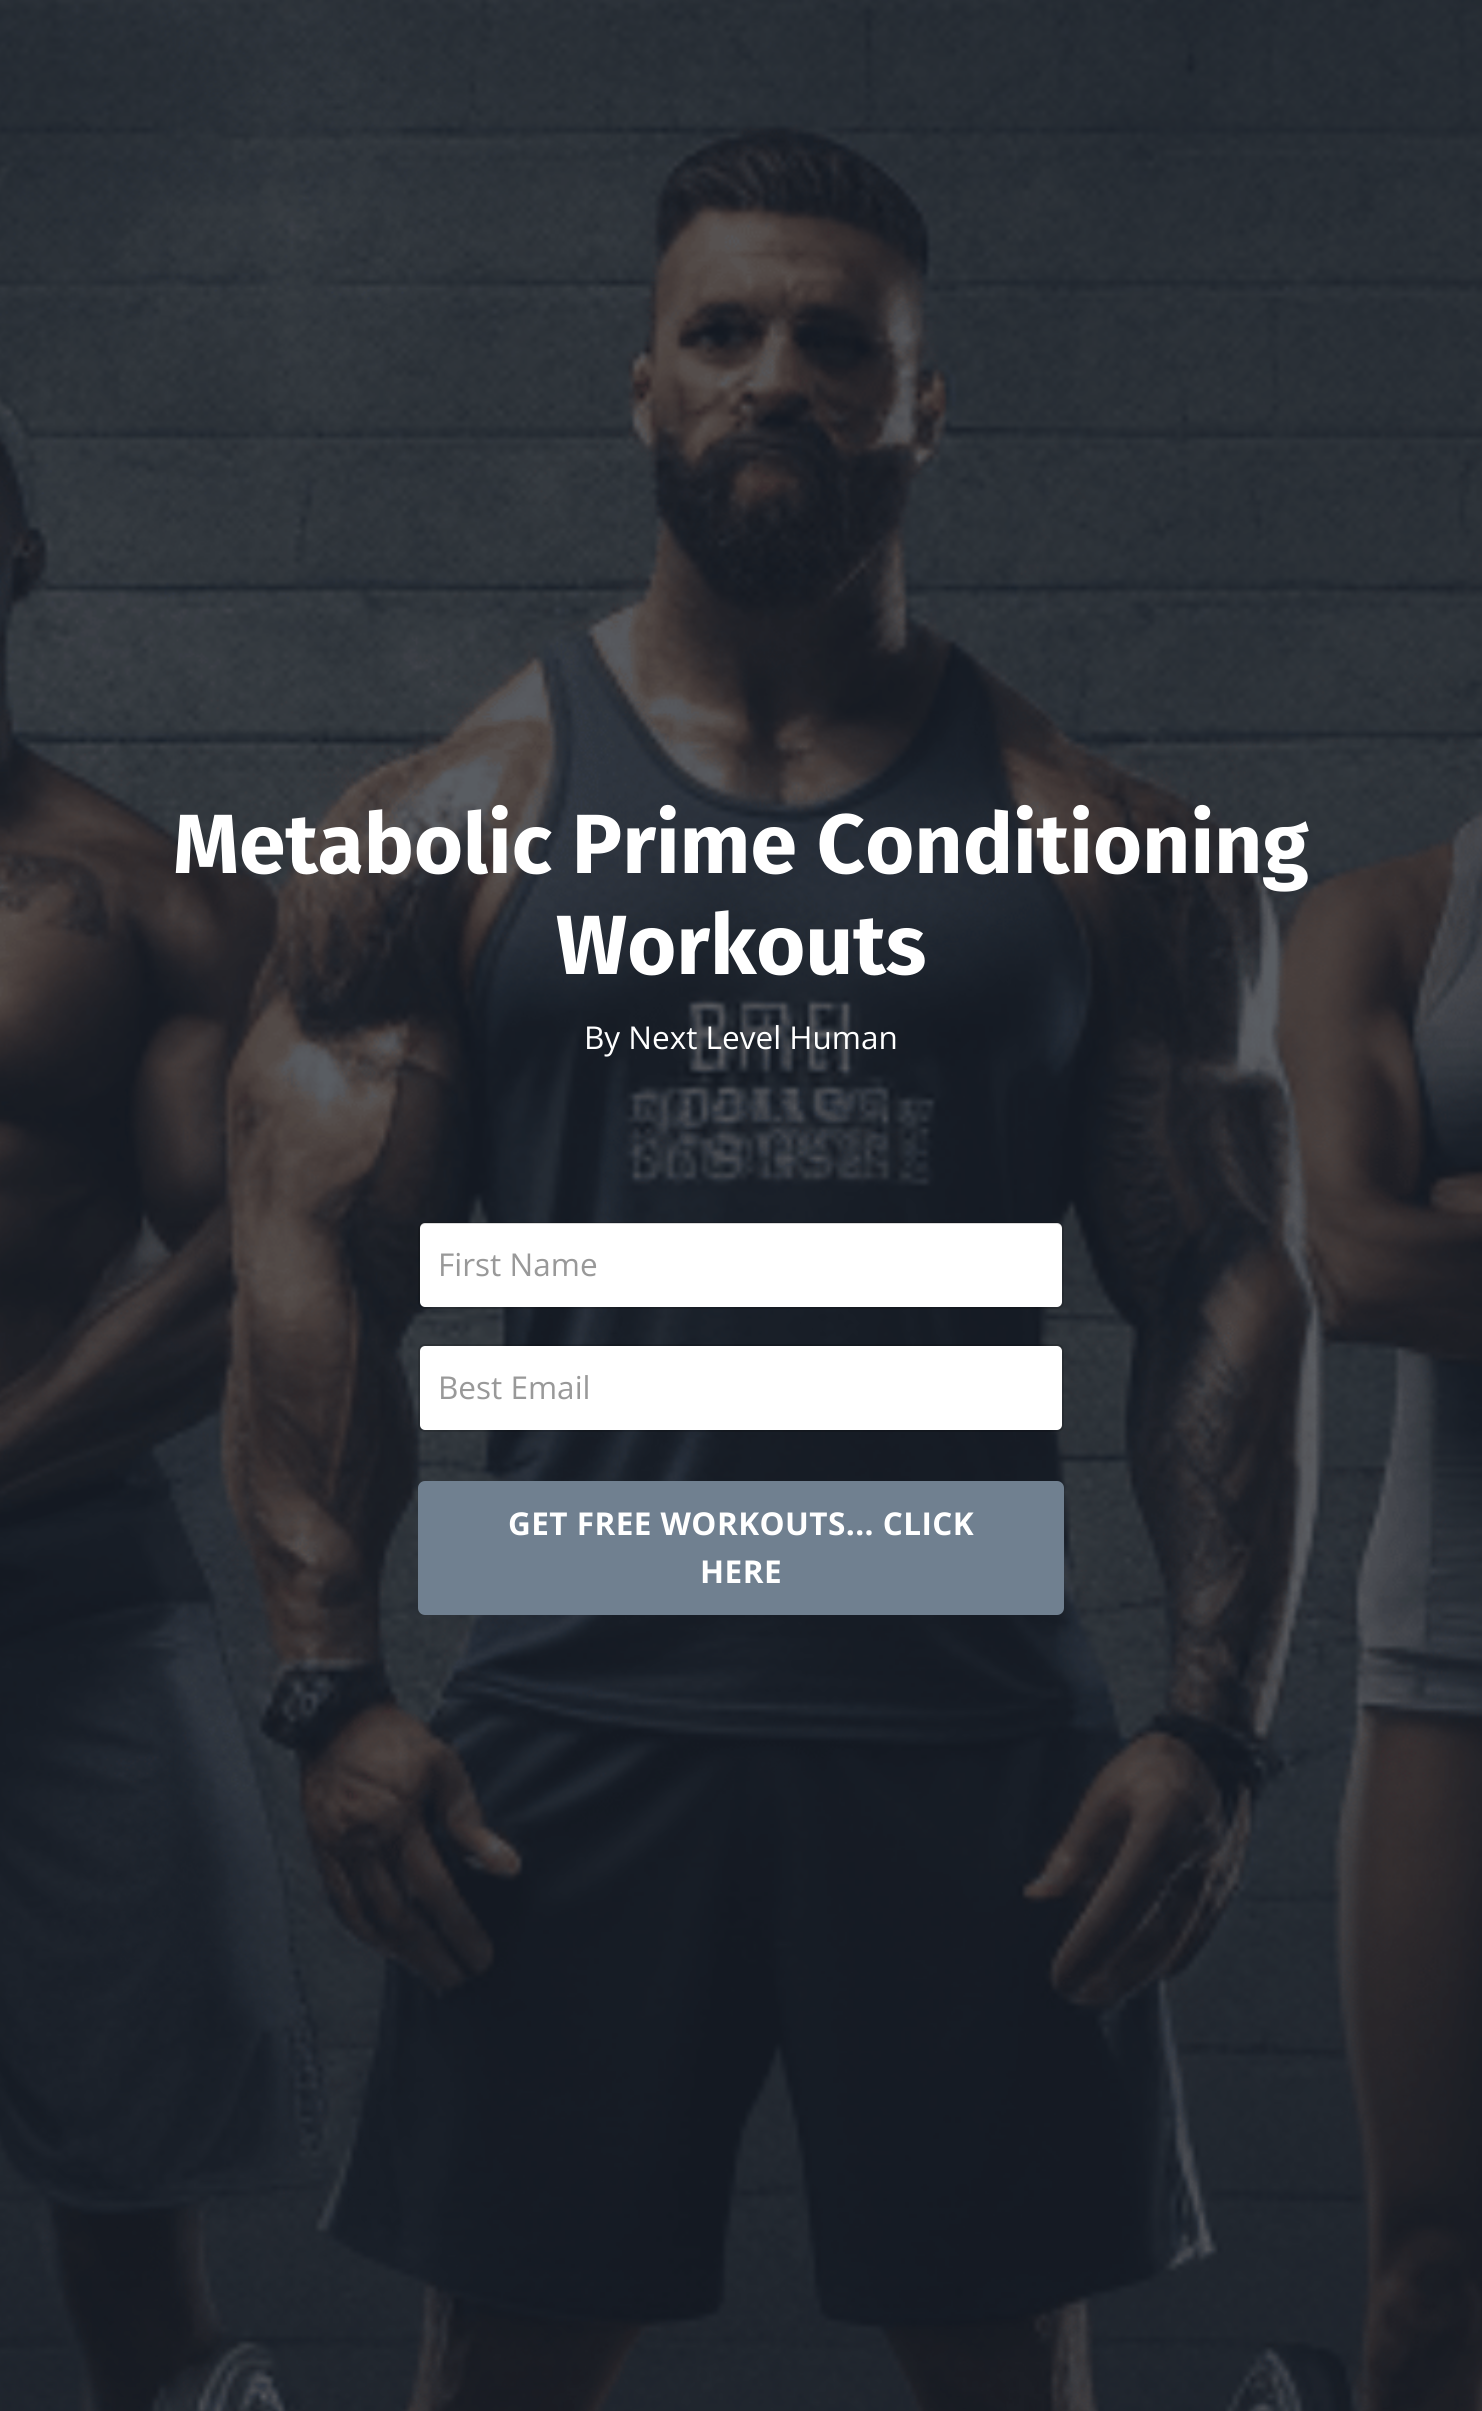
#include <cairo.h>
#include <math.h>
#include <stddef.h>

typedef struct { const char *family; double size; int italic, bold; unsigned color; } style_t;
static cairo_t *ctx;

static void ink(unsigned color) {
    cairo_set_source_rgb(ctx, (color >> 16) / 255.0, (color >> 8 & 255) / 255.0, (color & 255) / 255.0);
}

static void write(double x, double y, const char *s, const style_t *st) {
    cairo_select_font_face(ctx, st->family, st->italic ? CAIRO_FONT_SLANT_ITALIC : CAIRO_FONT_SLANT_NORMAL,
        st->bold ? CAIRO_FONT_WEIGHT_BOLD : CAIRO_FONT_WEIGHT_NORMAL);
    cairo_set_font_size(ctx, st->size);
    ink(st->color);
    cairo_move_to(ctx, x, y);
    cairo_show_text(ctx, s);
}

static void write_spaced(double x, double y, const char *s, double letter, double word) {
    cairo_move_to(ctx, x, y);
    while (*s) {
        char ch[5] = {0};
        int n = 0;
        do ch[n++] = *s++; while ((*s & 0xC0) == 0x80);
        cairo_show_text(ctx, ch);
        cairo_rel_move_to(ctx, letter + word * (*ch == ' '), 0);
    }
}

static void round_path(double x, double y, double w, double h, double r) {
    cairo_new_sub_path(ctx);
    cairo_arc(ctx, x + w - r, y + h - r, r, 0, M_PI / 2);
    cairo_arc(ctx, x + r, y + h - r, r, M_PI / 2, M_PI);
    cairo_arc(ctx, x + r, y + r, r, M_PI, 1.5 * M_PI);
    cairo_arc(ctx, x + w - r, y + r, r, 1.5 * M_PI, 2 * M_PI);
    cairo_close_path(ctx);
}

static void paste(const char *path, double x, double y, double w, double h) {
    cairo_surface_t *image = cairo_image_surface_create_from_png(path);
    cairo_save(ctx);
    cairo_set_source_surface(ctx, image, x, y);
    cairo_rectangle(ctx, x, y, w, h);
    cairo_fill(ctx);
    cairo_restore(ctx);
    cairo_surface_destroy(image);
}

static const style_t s1 = {"Fira Sans", 84, 0, 1, 0xffffff};
static const style_t s2 = {"Open Sans", 31.5, 0, 0, 0xffffff};
static const style_t s3 = {"Open Sans", 31.5, 0, 0, 0x999999};

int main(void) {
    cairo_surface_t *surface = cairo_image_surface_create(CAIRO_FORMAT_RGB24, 1482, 2411);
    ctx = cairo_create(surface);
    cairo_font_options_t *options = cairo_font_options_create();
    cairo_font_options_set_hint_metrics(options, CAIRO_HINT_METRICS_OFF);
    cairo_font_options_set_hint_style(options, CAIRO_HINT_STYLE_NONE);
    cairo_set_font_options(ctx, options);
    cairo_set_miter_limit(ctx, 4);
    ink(0xffffff);
    cairo_paint(ctx);
    paste("pic1.png", 0, 0, 1482, 2411);
    write(173, 873, "Metabolic Prime Conditioning", &s1);
    write(556, 974, "Workouts", &s1);
    write(584, 1049, "By Next Level Human", &s2);
    round_path(420, 1223, 642, 84, 5);
    cairo_fill(ctx);
    round_path(419, 1223, 644, 85, 6);
    cairo_set_source_rgba(ctx, 0, 0, 0, 0.15);
    cairo_stroke(ctx);
    write(438, 1276, "First Name", &s3);
    ink(0xffffff);
    round_path(420, 1346, 642, 84, 5);
    cairo_fill(ctx);
    round_path(419, 1345, 644, 86, 6);
    cairo_set_source_rgba(ctx, 0, 0, 0, 0.15);
    cairo_stroke(ctx);
    write(438, 1399, "Best Email", &s3);
    ink(0x708090);
    round_path(420, 1483, 642, 130, 5);
    cairo_fill_preserve(ctx);
    cairo_set_line_width(ctx, 4);
    cairo_stroke(ctx);
    cairo_select_font_face(ctx, "Open Sans", CAIRO_FONT_SLANT_NORMAL, CAIRO_FONT_WEIGHT_BOLD);
    ink(0xffffff);
    write_spaced(508, 1535, "GET FREE WORKOUTS... CLICK", 0.45, 0);
    write_spaced(700, 1583, "HERE", 0.45, 0);
    cairo_surface_write_to_png(surface, "screenshot.png");
    cairo_font_options_destroy(options);
    cairo_destroy(ctx);
    cairo_surface_destroy(surface);
    return 0;
}
